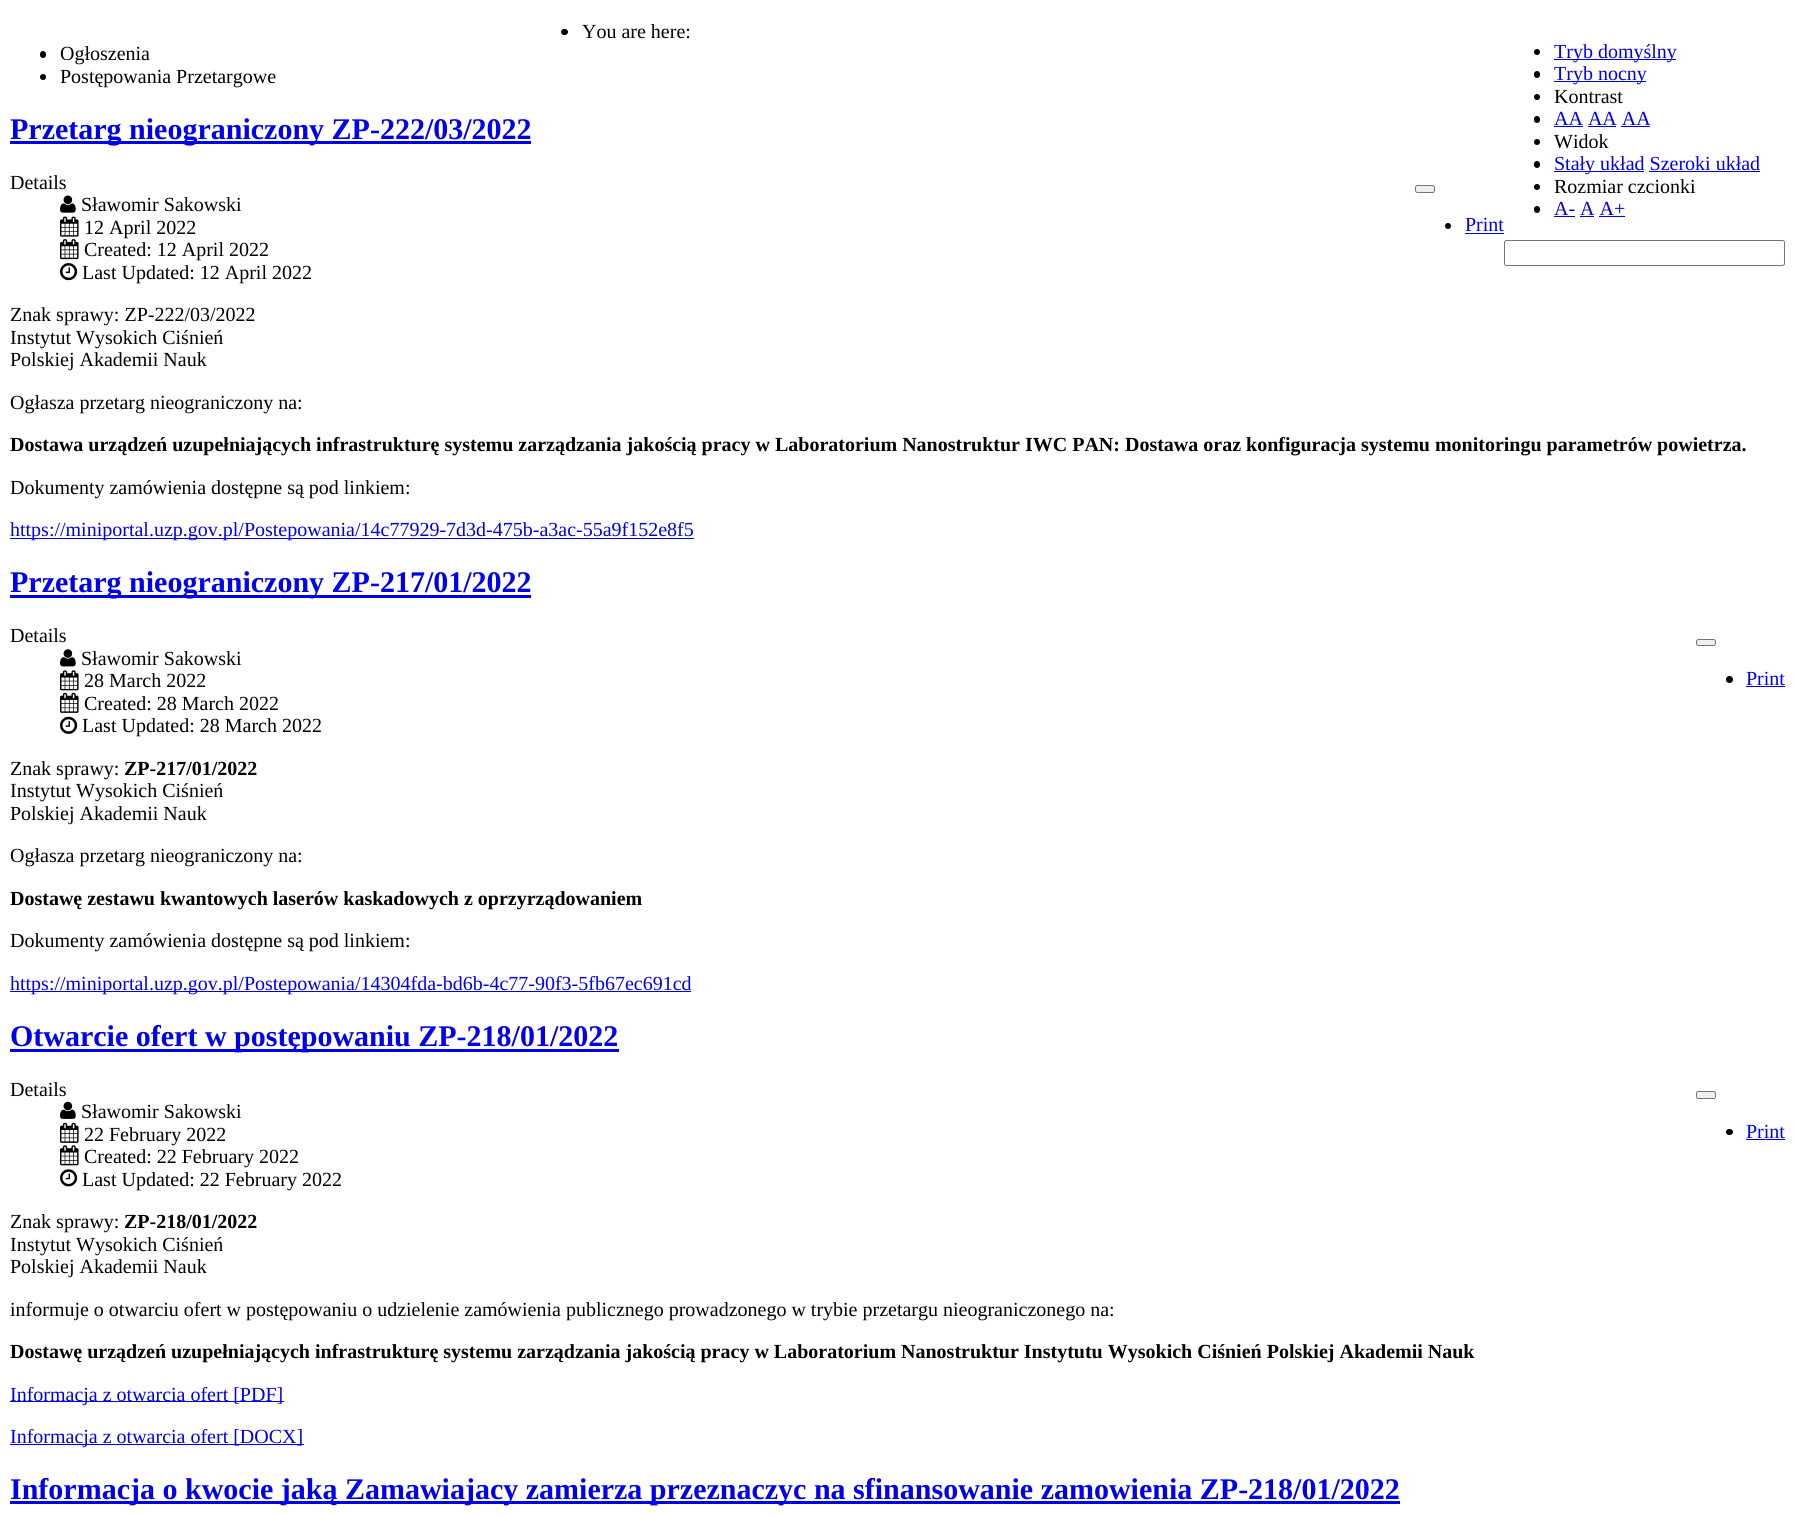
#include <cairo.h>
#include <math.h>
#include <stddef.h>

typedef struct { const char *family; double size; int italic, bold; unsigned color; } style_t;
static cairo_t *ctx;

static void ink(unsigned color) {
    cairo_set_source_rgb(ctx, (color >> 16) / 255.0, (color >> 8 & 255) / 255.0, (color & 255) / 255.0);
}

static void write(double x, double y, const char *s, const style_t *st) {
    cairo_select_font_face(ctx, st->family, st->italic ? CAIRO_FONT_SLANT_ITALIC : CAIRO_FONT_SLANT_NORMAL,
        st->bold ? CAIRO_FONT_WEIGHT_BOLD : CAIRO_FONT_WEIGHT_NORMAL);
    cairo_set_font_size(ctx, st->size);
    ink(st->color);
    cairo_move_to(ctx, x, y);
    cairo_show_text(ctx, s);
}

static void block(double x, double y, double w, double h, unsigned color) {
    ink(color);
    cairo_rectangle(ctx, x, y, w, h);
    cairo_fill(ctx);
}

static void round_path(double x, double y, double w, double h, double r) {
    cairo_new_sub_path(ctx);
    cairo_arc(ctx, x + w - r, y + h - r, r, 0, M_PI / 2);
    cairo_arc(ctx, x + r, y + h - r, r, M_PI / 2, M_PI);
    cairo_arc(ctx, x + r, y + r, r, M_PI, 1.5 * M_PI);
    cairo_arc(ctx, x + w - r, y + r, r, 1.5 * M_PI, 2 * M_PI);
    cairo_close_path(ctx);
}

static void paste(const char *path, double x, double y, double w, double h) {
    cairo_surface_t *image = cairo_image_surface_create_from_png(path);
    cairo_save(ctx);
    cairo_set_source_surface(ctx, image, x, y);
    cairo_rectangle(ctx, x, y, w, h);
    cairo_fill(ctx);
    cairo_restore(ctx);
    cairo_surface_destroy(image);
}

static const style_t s1 = {"Liberation Serif", 20, 0, 0, 0x000000};
static const style_t s2 = {"Liberation Serif", 30, 0, 1, 0x0000ee};
static const style_t s3 = {"Liberation Serif", 20, 0, 0, 0x0000ee};
static const style_t s4 = {"Liberation Serif", 20, 0, 1, 0x000000};

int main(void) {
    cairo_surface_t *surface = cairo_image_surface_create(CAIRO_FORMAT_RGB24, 1794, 1515);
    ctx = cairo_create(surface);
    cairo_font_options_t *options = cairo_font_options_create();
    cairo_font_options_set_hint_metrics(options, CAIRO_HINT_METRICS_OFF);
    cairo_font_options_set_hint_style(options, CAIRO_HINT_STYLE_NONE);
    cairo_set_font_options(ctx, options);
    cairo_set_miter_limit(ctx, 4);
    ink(0xffffff);
    cairo_paint(ctx);
    ink(0x000000);
    round_path(561, 29, 7, 6, 3);
    cairo_fill(ctx);
    write(582, 38, "You are here:", &s1);
    round_path(40, 51, 6, 7, 3);
    cairo_fill(ctx);
    write(60, 60, "Ogłoszenia", &s1);
    cairo_new_path(ctx);
    cairo_arc(ctx, 43, 77, 3, 0, 2 * M_PI);
    cairo_fill(ctx);
    write(60, 83, "Postępowania Przetargowe", &s1);
    block(10, 141, 521, 3, 0x0000ee);
    write(10, 139, "Przetarg nieograniczony ZP-222/03/2022", &s2);
    write(10, 189, "Details", &s1);
    paste("pic1.png", 60, 195, 16, 18);
    write(81, 211, "Sławomir Sakowski", &s1);
    paste("pic2.png", 60, 216, 19, 21);
    write(84, 234, "12 April 2022", &s1);
    paste("pic3.png", 60, 239, 19, 21);
    write(84, 256, "Created: 12 April 2022", &s1);
    paste("pic4.png", 60, 263, 18, 18);
    write(82, 279, "Last Updated: 12 April 2022", &s1);
    ink(0xefefef);
    round_path(1415.5, 185.5, 19, 7, 2);
    cairo_fill_preserve(ctx);
    ink(0x767676);
    cairo_set_line_width(ctx, 1);
    cairo_stroke(ctx);
    ink(0x000000);
    cairo_arc(ctx, 1448, 226, 3, 0, 2 * M_PI);
    cairo_fill(ctx);
    write(1465, 231, "Print", &s3);
    block(1465, 233, 39, 1, 0x0000ee);
    write(10, 321, "Znak sprawy: ZP-222/03/2022", &s1);
    write(10, 344, "Instytut Wysokich Ciśnień", &s1);
    write(10, 366, "Polskiej Akademii Nauk", &s1);
    write(10, 409, "Ogłasza przetarg nieograniczony na:", &s1);
    write(10, 451, "Dostawa urządzeń uzupełniających infrastrukturę systemu zarządzania jakością pracy w Laboratorium Nanostruktur IWC PAN: Dostawa oraz konfiguracja systemu monitoringu parametrów powietrza.", &s4);
    write(10, 494, "Dokumenty zamówienia dostępne są pod linkiem:", &s1);
    block(10, 538, 684, 1, 0x0000ee);
    write(10, 536, "https://miniportal.uzp.gov.pl/Postepowania/14c77929-7d3d-475b-a3ac-55a9f152e8f5", &s3);
    block(10, 595, 521, 3, 0x0000ee);
    write(10, 592, "Przetarg nieograniczony ZP-217/01/2022", &s2);
    write(10, 642, "Details", &s1);
    paste("pic5.png", 60, 649, 16, 18);
    write(81, 665, "Sławomir Sakowski", &s1);
    paste("pic6.png", 60, 670, 19, 21);
    write(84, 687, "28 March 2022", &s1);
    paste("pic7.png", 60, 692, 19, 21);
    write(84, 710, "Created: 28 March 2022", &s1);
    paste("pic8.png", 60, 716, 18, 18);
    write(82, 732, "Last Updated: 28 March 2022", &s1);
    ink(0xefefef);
    round_path(1696.5, 639.5, 19, 6, 2);
    cairo_fill_preserve(ctx);
    ink(0x767676);
    cairo_stroke(ctx);
    ink(0x000000);
    cairo_arc(ctx, 1729.5, 679.5, 3.5, 0, 2 * M_PI);
    cairo_fill(ctx);
    write(1746, 685, "Print", &s3);
    block(1746, 686, 39, 1, 0x0000ee);
    write(10, 775, "Znak sprawy:", &s1);
    write(124, 775, "ZP-217/01/2022", &s4);
    write(10, 797, "Instytut Wysokich Ciśnień", &s1);
    write(10, 820, "Polskiej Akademii Nauk", &s1);
    write(10, 862, "Ogłasza przetarg nieograniczony na:", &s1);
    write(10, 905, "Dostawę zestawu kwantowych laserów kaskadowych z oprzyrządowaniem", &s4);
    write(10, 947, "Dokumenty zamówienia dostępne są pod linkiem:", &s1);
    block(10, 991, 681, 1, 0x0000ee);
    write(10, 990, "https://miniportal.uzp.gov.pl/Postepowania/14304fda-bd6b-4c77-90f3-5fb67ec691cd", &s3);
    block(10, 1049, 609, 3, 0x0000ee);
    write(10, 1046, "Otwarcie ofert w postępowaniu ZP-218/01/2022", &s2);
    write(10, 1096, "Details", &s1);
    paste("pic9.png", 60, 1101, 16, 18);
    write(81, 1118, "Sławomir Sakowski", &s1);
    paste("pic7.png", 60, 1122, 19, 21);
    write(84, 1141, "22 February 2022", &s1);
    paste("pic6.png", 60, 1145, 19, 21);
    write(84, 1163, "Created: 22 February 2022", &s1);
    paste("pic10.png", 60, 1169, 18, 18);
    write(82, 1186, "Last Updated: 22 February 2022", &s1);
    ink(0xefefef);
    round_path(1696.5, 1091.5, 19, 7, 2);
    cairo_fill_preserve(ctx);
    ink(0x767676);
    cairo_stroke(ctx);
    ink(0x000000);
    round_path(1726, 1129, 7, 6, 3);
    cairo_fill(ctx);
    write(1746, 1138, "Print", &s3);
    block(1746, 1139, 39, 1, 0x0000ee);
    write(10, 1228, "Znak sprawy:", &s1);
    write(124, 1228, "ZP-218/01/2022", &s4);
    write(10, 1251, "Instytut Wysokich Ciśnień", &s1);
    write(10, 1273, "Polskiej Akademii Nauk", &s1);
    write(10, 1316, "informuje o otwarciu ofert w postępowaniu o udzielenie zamówienia publicznego prowadzonego w trybie przetargu nieograniczonego na:", &s1);
    write(10, 1358, "Dostawę urządzeń uzupełniających infrastrukturę systemu zarządzania jakością pracy w Laboratorium Nanostruktur Instytutu Wysokich Ciśnień Polskiej Akademii Nauk", &s4);
    block(10, 1401, 274, 1, 0x0000ee);
    write(10, 1401, "Informacja z otwarcia ofert [PDF]", &s3);
    block(10, 1444, 294, 1, 0x0000ee);
    write(10, 1443, "Informacja z otwarcia ofert [DOCX]", &s3);
    block(10, 1501, 1390, 3, 0x0000ee);
    write(10, 1499, "Informacja o kwocie jaką Zamawiajacy zamierza przeznaczyc na sfinansowanie zamowienia ZP-218/01/2022", &s2);
    ink(0x000000);
    cairo_new_path(ctx);
    cairo_arc(ctx, 1537, 52, 3, 0, 2 * M_PI);
    cairo_fill(ctx);
    block(1554, 59, 122, 1, 0x0000ee);
    write(1554, 58, "Tryb domyślny", &s3);
    ink(0x000000);
    round_path(1534, 71, 6, 7, 3);
    cairo_fill(ctx);
    block(1554, 81, 92, 1, 0x0000ee);
    write(1554, 80, "Tryb nocny", &s3);
    ink(0x000000);
    cairo_new_path(ctx);
    cairo_arc(ctx, 1537, 97, 3, 0, 2 * M_PI);
    cairo_fill(ctx);
    write(1554, 103, "Kontrast", &s1);
    round_path(1534, 116, 6, 7, 3);
    cairo_fill(ctx);
    write(1554, 125, "AA AA AA", &s3);
    block(1554, 126, 29, 1, 0x0000ee);
    block(1588, 126, 28, 1, 0x0000ee);
    block(1621, 126, 29, 1, 0x0000ee);
    ink(0x000000);
    cairo_new_path(ctx);
    cairo_arc(ctx, 1537, 142, 3, 0, 2 * M_PI);
    cairo_fill(ctx);
    write(1554, 148, "Widok", &s1);
    round_path(1534, 161, 6, 7, 3);
    cairo_fill(ctx);
    block(1554, 171, 90, 1, 0x0000ee);
    write(1554, 170, "Stały układ Szeroki układ", &s3);
    block(1649, 171, 111, 1, 0x0000ee);
    ink(0x000000);
    cairo_new_path(ctx);
    cairo_arc(ctx, 1537, 187, 3, 0, 2 * M_PI);
    cairo_fill(ctx);
    write(1554, 193, "Rozmiar czcionki", &s1);
    round_path(1534, 206, 6, 7, 3);
    cairo_fill(ctx);
    write(1554, 215, "A- A A+", &s3);
    block(1554, 216, 21, 1, 0x0000ee);
    block(1580, 216, 14, 1, 0x0000ee);
    block(1599, 216, 26, 1, 0x0000ee);
    round_path(1504.5, 240.5, 280, 25, 2);
    ink(0x767676);
    cairo_stroke(ctx);
    cairo_surface_write_to_png(surface, "screenshot.png");
    cairo_font_options_destroy(options);
    cairo_destroy(ctx);
    cairo_surface_destroy(surface);
    return 0;
}
